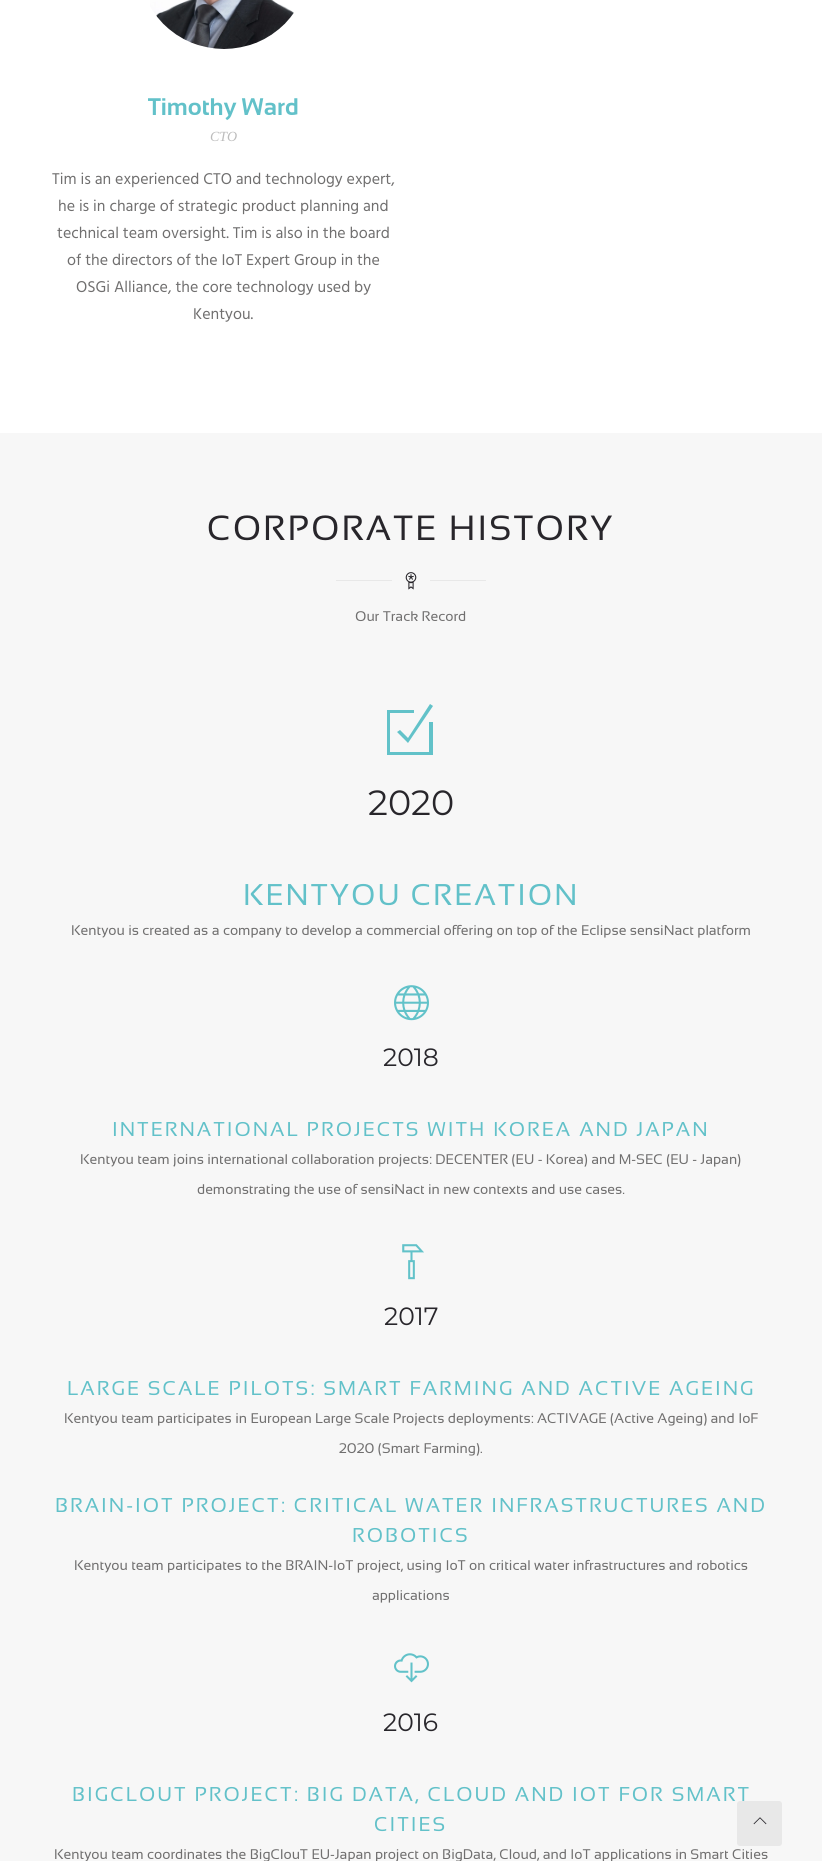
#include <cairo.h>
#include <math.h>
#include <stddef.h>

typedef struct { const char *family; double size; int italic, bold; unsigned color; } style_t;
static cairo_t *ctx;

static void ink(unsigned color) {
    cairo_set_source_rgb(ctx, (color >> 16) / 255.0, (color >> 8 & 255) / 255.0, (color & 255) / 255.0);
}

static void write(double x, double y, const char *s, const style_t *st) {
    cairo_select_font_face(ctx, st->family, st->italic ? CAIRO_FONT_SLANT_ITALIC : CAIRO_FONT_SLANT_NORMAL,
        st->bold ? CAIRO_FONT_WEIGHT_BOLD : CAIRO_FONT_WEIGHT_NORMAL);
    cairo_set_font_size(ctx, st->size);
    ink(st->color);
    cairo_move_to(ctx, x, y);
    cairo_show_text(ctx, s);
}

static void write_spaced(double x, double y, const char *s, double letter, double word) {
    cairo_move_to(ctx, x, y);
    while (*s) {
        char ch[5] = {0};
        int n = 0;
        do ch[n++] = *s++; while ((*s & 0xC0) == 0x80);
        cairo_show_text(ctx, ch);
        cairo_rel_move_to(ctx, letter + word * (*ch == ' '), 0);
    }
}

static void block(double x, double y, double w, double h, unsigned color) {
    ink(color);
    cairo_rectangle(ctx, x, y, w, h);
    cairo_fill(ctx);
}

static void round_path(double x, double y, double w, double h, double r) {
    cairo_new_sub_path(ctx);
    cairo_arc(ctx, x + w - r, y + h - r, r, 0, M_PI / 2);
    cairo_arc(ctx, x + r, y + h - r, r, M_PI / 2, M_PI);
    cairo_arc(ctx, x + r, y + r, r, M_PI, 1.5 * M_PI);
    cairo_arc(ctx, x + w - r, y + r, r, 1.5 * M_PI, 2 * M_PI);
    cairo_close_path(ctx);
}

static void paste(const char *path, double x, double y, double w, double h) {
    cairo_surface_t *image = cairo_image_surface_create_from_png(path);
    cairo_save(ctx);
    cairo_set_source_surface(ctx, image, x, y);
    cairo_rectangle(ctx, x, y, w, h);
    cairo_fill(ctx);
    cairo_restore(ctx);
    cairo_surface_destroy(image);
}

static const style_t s1 = {"Sansation", 24, 0, 1, 0x62c1c9};
static const style_t s2 = {"Liberation Serif", 14, 1, 0, 0xbcbcbc};
static const style_t s3 = {"Hind", 16, 0, 0, 0x706f6f};
static const style_t s4 = {"Sansation", 14, 0, 0, 0x706f6f};
static const style_t s5 = {"Montserrat", 35, 0, 0, 0x28262b};
static const style_t s6 = {"Montserrat", 25, 0, 0, 0x28262b};

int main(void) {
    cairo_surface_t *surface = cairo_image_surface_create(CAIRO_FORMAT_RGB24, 822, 1861);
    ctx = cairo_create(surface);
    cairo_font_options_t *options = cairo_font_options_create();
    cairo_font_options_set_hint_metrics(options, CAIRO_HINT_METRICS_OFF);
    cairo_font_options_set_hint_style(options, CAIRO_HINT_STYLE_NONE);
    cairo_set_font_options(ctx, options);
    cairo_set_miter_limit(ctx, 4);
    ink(0xffffff);
    cairo_paint(ctx);
    paste("pic1.png", 150, 0, 144, 49);
    write(148, 115, "Timothy Ward", &s1);
    write(210, 141, "CTO", &s2);
    write(52, 184, "Tim is an experienced CTO and technology expert,", &s3);
    write(58, 211, "he is in charge of strategic product planning and", &s3);
    write(57, 238, "technical team oversight. Tim is also in the board", &s3);
    write(67, 265, "of the directors of the IoT Expert Group in the", &s3);
    write(76, 292, "OSGi Alliance, the core technology used by", &s3);
    write(193, 319, "Kentyou.", &s3);
    block(0, 433, 822, 1428, 0xf7f7f7);
    cairo_select_font_face(ctx, "Sansation", CAIRO_FONT_SLANT_NORMAL, CAIRO_FONT_WEIGHT_NORMAL);
    cairo_set_font_size(ctx, 35);
    ink(0x28262b);
    write_spaced(207, 540, "CORPORATE HISTORY", 2, 0);
    block(336, 580, 150, 1, 0xe8e8e8);
    block(392, 580, 38, 1, 0xf7f7f7);
    paste("pic2.png", 405, 572, 12, 18);
    write(355, 621, "Our Track Record", &s4);
    ink(0x62c2c9);
    cairo_new_path(ctx);
    cairo_move_to(ctx, 429, 722);
    cairo_line_to(ctx, 433, 722);
    cairo_line_to(ctx, 433, 755);
    cairo_line_to(ctx, 387, 755);
    cairo_line_to(ctx, 387, 710);
    cairo_line_to(ctx, 414, 710);
    cairo_line_to(ctx, 414, 713);
    cairo_line_to(ctx, 390, 713);
    cairo_line_to(ctx, 390, 752);
    cairo_line_to(ctx, 429, 752);
    cairo_close_path(ctx);
    cairo_move_to(ctx, 400, 730);
    cairo_line_to(ctx, 397, 732);
    cairo_line_to(ctx, 408, 743);
    cairo_line_to(ctx, 433, 706);
    cairo_line_to(ctx, 430, 704);
    cairo_line_to(ctx, 408, 738);
    cairo_close_path(ctx);
    cairo_fill(ctx);
    write(368, 815, "2020", &s5);
    cairo_select_font_face(ctx, "Sansation", CAIRO_FONT_SLANT_NORMAL, CAIRO_FONT_WEIGHT_NORMAL);
    cairo_set_font_size(ctx, 30);
    ink(0x62c1c9);
    write_spaced(243, 905, "KENTYOU CREATION", 2, 0);
    write(71, 935, "Kentyou is created as a company to develop a commercial offering on top of the Eclipse sensiNact platform", &s4);
    paste("pic3.png", 394, 985, 35, 36);
    write(383, 1066, "2018", &s6);
    cairo_select_font_face(ctx, "Sansation", CAIRO_FONT_SLANT_NORMAL, CAIRO_FONT_WEIGHT_NORMAL);
    cairo_set_font_size(ctx, 20);
    ink(0x62c1c9);
    write_spaced(112, 1136, "INTERNATIONAL PROJECTS WITH KOREA AND JAPAN", 2, 0);
    write(80, 1164, "Kentyou team joins international collaboration projects: DECENTER (EU - Korea) and M-SEC (EU - Japan)", &s4);
    write(197, 1194, "demonstrating the use of sensiNact in new contexts and use cases.", &s4);
    paste("pic4.png", 402, 1244, 22, 36);
    write(384, 1325, "2017", &s6);
    cairo_select_font_face(ctx, "Sansation", CAIRO_FONT_SLANT_NORMAL, CAIRO_FONT_WEIGHT_NORMAL);
    cairo_set_font_size(ctx, 20);
    ink(0x62c1c9);
    write_spaced(67, 1395, "LARGE SCALE PILOTS: SMART FARMING AND ACTIVE AGEING", 2, 0);
    write(64, 1423, "Kentyou team participates in European Large Scale Projects deployments: ACTIVAGE (Active Ageing) and IoF", &s4);
    write(339, 1453, "2020 (Smart Farming).", &s4);
    cairo_set_font_size(ctx, 20);
    ink(0x62c1c9);
    write_spaced(55, 1512, "BRAIN-IOT PROJECT: CRITICAL WATER INFRASTRUCTURES AND", 2, 0);
    write_spaced(352, 1542, "ROBOTICS", 2, 0);
    write(74, 1570, "Kentyou team participates to the BRAIN-IoT project, using IoT on critical water infrastructures and robotics", &s4);
    write(372, 1600, "applications", &s4);
    paste("pic5.png", 394, 1653, 35, 30);
    write(383, 1731, "2016", &s6);
    cairo_select_font_face(ctx, "Sansation", CAIRO_FONT_SLANT_NORMAL, CAIRO_FONT_WEIGHT_NORMAL);
    cairo_set_font_size(ctx, 20);
    ink(0x62c1c9);
    write_spaced(72, 1801, "BIGCLOUT PROJECT: BIG DATA, CLOUD AND IOT FOR SMART", 2, 0);
    write_spaced(374, 1831, "CITIES", 2, 0);
    write(54, 1859, "Kentyou team coordinates the BigClouT EU-Japan project on BigData, Cloud, and IoT applications in Smart Cities", &s4);
    ink(0xe8e8e8);
    round_path(737, 1801, 45, 45, 3);
    cairo_fill(ctx);
    paste("pic6.png", 753, 1817, 14, 8);
    cairo_surface_write_to_png(surface, "screenshot.png");
    cairo_font_options_destroy(options);
    cairo_destroy(ctx);
    cairo_surface_destroy(surface);
    return 0;
}
